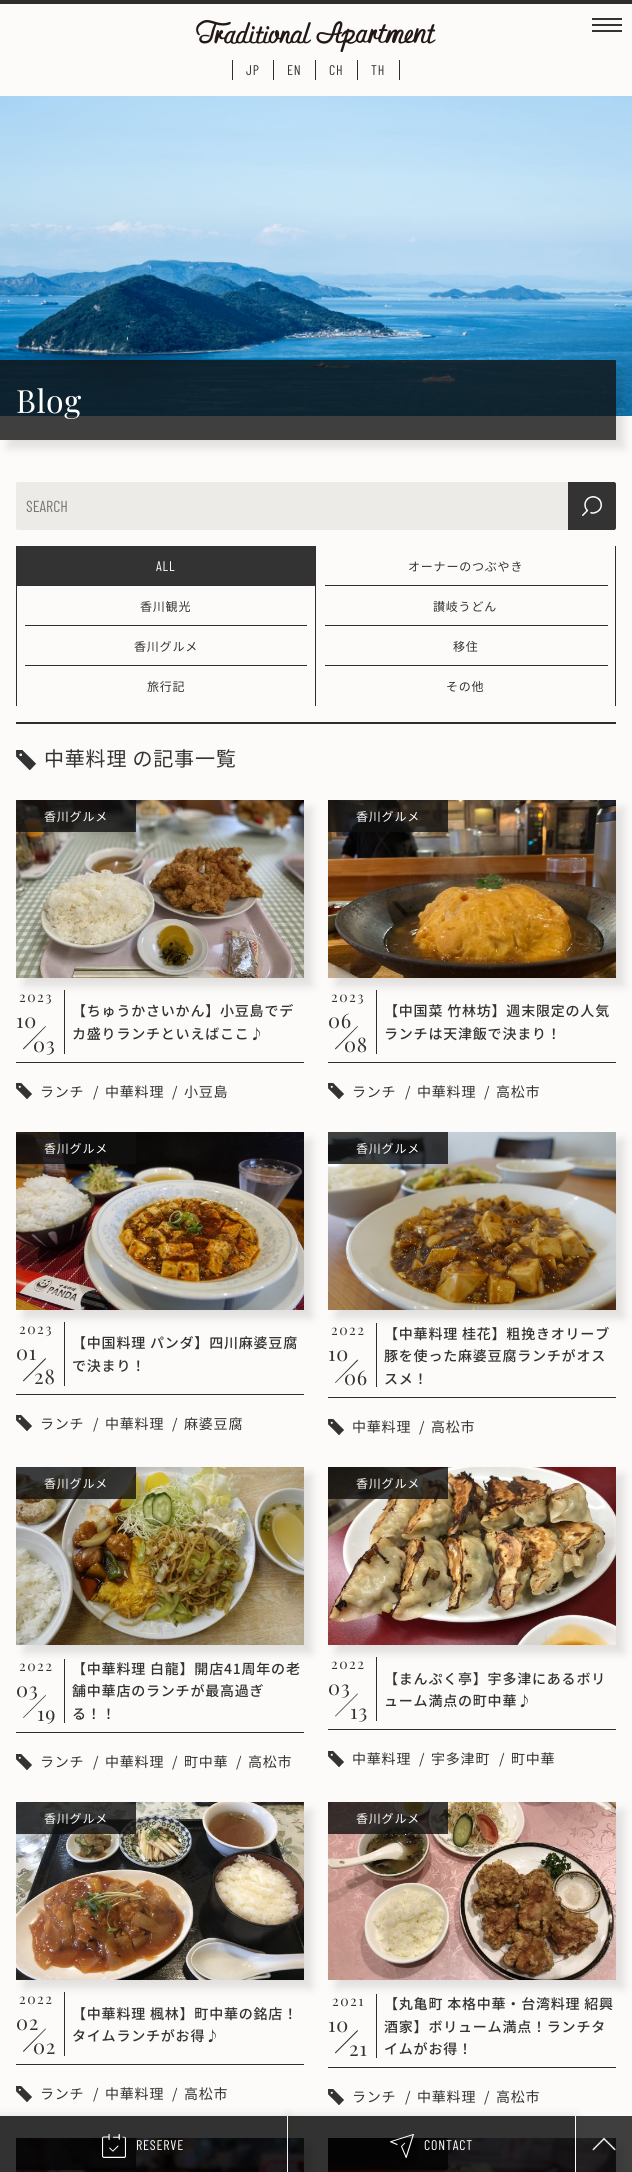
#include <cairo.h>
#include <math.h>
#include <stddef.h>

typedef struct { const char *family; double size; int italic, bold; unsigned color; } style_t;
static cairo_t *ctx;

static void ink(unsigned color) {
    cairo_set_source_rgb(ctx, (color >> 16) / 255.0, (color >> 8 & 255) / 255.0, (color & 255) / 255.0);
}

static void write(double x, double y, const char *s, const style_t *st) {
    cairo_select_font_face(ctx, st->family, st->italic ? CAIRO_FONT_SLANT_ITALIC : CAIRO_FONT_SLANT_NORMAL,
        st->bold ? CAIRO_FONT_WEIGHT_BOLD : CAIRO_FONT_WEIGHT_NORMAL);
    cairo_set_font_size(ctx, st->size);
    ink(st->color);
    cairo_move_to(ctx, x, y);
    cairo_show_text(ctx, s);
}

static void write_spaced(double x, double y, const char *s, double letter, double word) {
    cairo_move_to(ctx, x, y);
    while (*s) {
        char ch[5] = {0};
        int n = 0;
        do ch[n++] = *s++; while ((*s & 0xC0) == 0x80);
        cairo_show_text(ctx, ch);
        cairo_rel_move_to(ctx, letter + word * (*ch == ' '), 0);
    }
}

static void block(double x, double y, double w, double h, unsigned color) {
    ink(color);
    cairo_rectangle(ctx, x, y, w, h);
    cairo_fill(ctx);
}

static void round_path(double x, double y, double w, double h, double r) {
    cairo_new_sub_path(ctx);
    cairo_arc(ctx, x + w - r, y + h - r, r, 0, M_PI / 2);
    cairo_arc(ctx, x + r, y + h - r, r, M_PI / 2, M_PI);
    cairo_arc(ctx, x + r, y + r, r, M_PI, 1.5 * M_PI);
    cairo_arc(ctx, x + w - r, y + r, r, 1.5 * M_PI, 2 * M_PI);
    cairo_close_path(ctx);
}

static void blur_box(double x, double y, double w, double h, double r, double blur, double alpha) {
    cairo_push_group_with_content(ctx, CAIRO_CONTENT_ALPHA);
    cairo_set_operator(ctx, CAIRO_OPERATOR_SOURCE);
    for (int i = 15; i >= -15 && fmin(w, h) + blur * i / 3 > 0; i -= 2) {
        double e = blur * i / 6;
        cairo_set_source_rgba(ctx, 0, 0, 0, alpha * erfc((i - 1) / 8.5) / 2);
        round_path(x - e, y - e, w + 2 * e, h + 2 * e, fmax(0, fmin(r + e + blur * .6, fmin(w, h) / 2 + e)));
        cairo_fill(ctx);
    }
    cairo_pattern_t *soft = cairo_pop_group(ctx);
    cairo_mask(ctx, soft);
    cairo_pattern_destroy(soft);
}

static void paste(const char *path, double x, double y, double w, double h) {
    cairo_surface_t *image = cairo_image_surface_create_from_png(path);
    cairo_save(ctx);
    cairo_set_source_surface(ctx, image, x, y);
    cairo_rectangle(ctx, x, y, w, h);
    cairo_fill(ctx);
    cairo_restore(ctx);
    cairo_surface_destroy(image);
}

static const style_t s1 = {"Barlow Condensed", 16, 0, 0, 0x757575};

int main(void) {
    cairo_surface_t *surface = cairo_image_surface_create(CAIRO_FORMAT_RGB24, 632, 2172);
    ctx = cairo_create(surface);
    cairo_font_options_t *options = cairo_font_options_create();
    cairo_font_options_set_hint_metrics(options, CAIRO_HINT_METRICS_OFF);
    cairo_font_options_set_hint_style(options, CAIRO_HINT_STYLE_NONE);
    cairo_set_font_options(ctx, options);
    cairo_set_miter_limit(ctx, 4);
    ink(0xfcfbf9);
    cairo_paint(ctx);
    block(592, 24, 30, 2, 0x333333);
    block(592, 18, 30, 2, 0x333333);
    block(592, 30, 30, 2, 0x333333);
    block(0, 0, 632, 4, 0x2e2e2e);
    paste("pic1.png", 196, 20, 240, 32);
    block(273, 60, 1, 20, 0x2e2e2e);
    block(232, 60, 1, 20, 0x2e2e2e);
    cairo_select_font_face(ctx, "Barlow Condensed", CAIRO_FONT_SLANT_NORMAL, CAIRO_FONT_WEIGHT_NORMAL);
    cairo_set_font_size(ctx, 14);
    ink(0x333333);
    write_spaced(246, 75, "JP", 0.8, 0);
    block(315, 60, 1, 20, 0x2e2e2e);
    ink(0x333333);
    write_spaced(287, 75, "EN", 0.8, 0);
    block(357, 60, 1, 20, 0x2e2e2e);
    ink(0x333333);
    write_spaced(329, 75, "CH", 0.8, 0);
    block(399, 60, 1, 20, 0x2e2e2e);
    ink(0x333333);
    write_spaced(371, 75, "TH", 0.8, 0);
    paste("pic2.png", 0, 96, 632, 320);
    cairo_save(ctx);
    cairo_set_fill_rule(ctx, CAIRO_FILL_RULE_EVEN_ODD);
    cairo_new_path(ctx);
    cairo_move_to(ctx, 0, 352);
    cairo_line_to(ctx, 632, 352);
    cairo_line_to(ctx, 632, 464);
    cairo_line_to(ctx, 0, 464);
    cairo_close_path(ctx);
    cairo_move_to(ctx, 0, 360);
    cairo_line_to(ctx, 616, 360);
    cairo_line_to(ctx, 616, 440);
    cairo_line_to(ctx, 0, 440);
    cairo_close_path(ctx);
    cairo_clip(ctx);
    ink(0x111111);
    blur_box(8, 368, 616, 80, 0, 5, 0.12);
    cairo_restore(ctx);
    cairo_set_source_rgba(ctx, 0.067, 0.067, 0.067, 0.8);
    cairo_rectangle(ctx, 0, 360, 616, 80);
    cairo_fill(ctx);
    cairo_select_font_face(ctx, "Playfair Display", CAIRO_FONT_SLANT_NORMAL, CAIRO_FONT_WEIGHT_NORMAL);
    cairo_set_font_size(ctx, 32);
    ink(0xffffff);
    write_spaced(16, 413, "Blog", 0.5, 0);
    ink(0xedebe7);
    cairo_new_path(ctx);
    cairo_move_to(ctx, 18, 482);
    cairo_line_to(ctx, 568, 482);
    cairo_line_to(ctx, 568, 530);
    cairo_line_to(ctx, 18, 530);
    cairo_curve_to(ctx, 17, 530, 16, 529, 16, 528);
    cairo_line_to(ctx, 16, 484);
    cairo_curve_to(ctx, 16, 483, 17, 482, 18, 482);
    cairo_close_path(ctx);
    cairo_fill(ctx);
    write(26, 512, "SEARCH", &s1);
    ink(0x333333);
    cairo_new_path(ctx);
    cairo_move_to(ctx, 568, 482);
    cairo_line_to(ctx, 614, 482);
    cairo_curve_to(ctx, 615, 482, 616, 483, 616, 484);
    cairo_line_to(ctx, 616, 528);
    cairo_curve_to(ctx, 616, 529, 615, 530, 614, 530);
    cairo_line_to(ctx, 568, 530);
    cairo_close_path(ctx);
    cairo_fill(ctx);
    paste("pic3.png", 582, 496, 20, 20);
    block(16, 722, 600, 2, 0x2e2e2e);
    block(315, 546, 1, 120, 0x2e2e2e);
    block(16, 546, 1, 120, 0x2e2e2e);
    block(17, 546, 298, 40, 0x333333);
    cairo_set_font_size(ctx, 14);
    ink(0xffffff);
    write_spaced(156, 571, "ALL", 0.8, 0);
    block(25, 585, 282, 1, 0x2e2e2e);
    block(615, 546, 1, 120, 0x2e2e2e);
    cairo_select_font_face(ctx, "Noto Sans JP", CAIRO_FONT_SLANT_NORMAL, CAIRO_FONT_WEIGHT_NORMAL);
    cairo_set_font_size(ctx, 12);
    ink(0x333333);
    write_spaced(408, 571, "オーナーのつぶやき", 0.8, 0);
    block(325, 585, 283, 1, 0x2e2e2e);
    ink(0x333333);
    write_spaced(140, 611, "香川観光", 0.8, 0);
    block(25, 625, 282, 1, 0x2e2e2e);
    ink(0x333333);
    write_spaced(433, 611, "讃岐うどん", 0.8, 0);
    block(325, 625, 283, 1, 0x2e2e2e);
    ink(0x333333);
    write_spaced(134, 651, "香川グルメ", 0.8, 0);
    block(25, 665, 282, 1, 0x2e2e2e);
    ink(0x333333);
    write_spaced(453, 651, "移住", 0.8, 0);
    block(325, 665, 283, 1, 0x2e2e2e);
    block(315, 666, 1, 40, 0x2e2e2e);
    block(16, 666, 1, 40, 0x2e2e2e);
    ink(0x333333);
    write_spaced(147, 691, "旅行記", 0.8, 0);
    block(615, 666, 1, 40, 0x2e2e2e);
    ink(0x333333);
    write_spaced(446, 691, "その他", 0.8, 0);
    paste("pic4.png", 16, 750, 20, 20);
    cairo_set_font_size(ctx, 20);
    write_spaced(44, 766, "中華料理 の記事一覧", 0.8, 0);
    ink(0x111111);
    blur_box(24, 808, 288, 178, 0, 5, 0.12);
    paste("pic5.png", 16, 800, 288, 178);
    cairo_set_source_rgba(ctx, 0.067, 0.067, 0.067, 0.8);
    cairo_rectangle(ctx, 16, 800, 120, 32);
    cairo_fill(ctx);
    cairo_set_font_size(ctx, 12);
    ink(0xffffff);
    write_spaced(44, 821, "香川グルメ", 0.8, 0);
    block(16, 1062, 288, 1, 0x2e2e2e);
    cairo_select_font_face(ctx, "Playfair Display", CAIRO_FONT_SLANT_NORMAL, CAIRO_FONT_WEIGHT_NORMAL);
    cairo_set_font_size(ctx, 14);
    ink(0x333333);
    write_spaced(19, 1002, "2023", 1.5, 0);
    ink(0x2e2e2e);
    cairo_new_path(ctx);
    cairo_move_to(ctx, 45.5, 1026);
    cairo_line_to(ctx, 46, 1026.5);
    cairo_line_to(ctx, 23.5, 1049.5);
    cairo_line_to(ctx, 23, 1048.5);
    cairo_close_path(ctx);
    cairo_fill(ctx);
    cairo_set_font_size(ctx, 20);
    ink(0x333333);
    write_spaced(16, 1028, "10", 0.8, 0);
    write_spaced(33, 1052, "03", 0.8, 0);
    block(64, 990, 1, 64, 0x2e2e2e);
    cairo_select_font_face(ctx, "Noto Sans JP Medium", CAIRO_FONT_SLANT_NORMAL, CAIRO_FONT_WEIGHT_NORMAL);
    cairo_set_font_size(ctx, 14);
    ink(0x333333);
    write_spaced(72, 1016, "【ちゅうかさいかん】小豆島でデ", 0.8, 0);
    write_spaced(72, 1039, "カ盛りランチといえばここ♪", 0.8, 0);
    paste("pic6.png", 16, 1083, 16, 16);
    cairo_select_font_face(ctx, "Noto Sans JP", CAIRO_FONT_SLANT_NORMAL, CAIRO_FONT_WEIGHT_NORMAL);
    write_spaced(40, 1097, "ランチ", 0.8, 0);
    write_spaced(93, 1097, "/", 0.8, 0);
    write_spaced(105, 1097, "中華料理", 0.8, 0);
    write_spaced(172, 1097, "/", 0.8, 0);
    write_spaced(184, 1097, "小豆島", 0.8, 0);
    ink(0x111111);
    blur_box(336, 808, 288, 178, 0, 5, 0.12);
    paste("pic7.png", 328, 800, 288, 178);
    cairo_set_source_rgba(ctx, 0.067, 0.067, 0.067, 0.8);
    cairo_rectangle(ctx, 328, 800, 120, 32);
    cairo_fill(ctx);
    cairo_set_font_size(ctx, 12);
    ink(0xffffff);
    write_spaced(356, 821, "香川グルメ", 0.8, 0);
    block(328, 1062, 288, 1, 0x2e2e2e);
    cairo_select_font_face(ctx, "Playfair Display", CAIRO_FONT_SLANT_NORMAL, CAIRO_FONT_WEIGHT_NORMAL);
    cairo_set_font_size(ctx, 14);
    ink(0x333333);
    write_spaced(331, 1002, "2023", 1.5, 0);
    ink(0x2e2e2e);
    cairo_new_path(ctx);
    cairo_move_to(ctx, 357.5, 1026);
    cairo_line_to(ctx, 358, 1026.5);
    cairo_line_to(ctx, 335.5, 1049.5);
    cairo_line_to(ctx, 335, 1048.5);
    cairo_close_path(ctx);
    cairo_fill(ctx);
    cairo_set_font_size(ctx, 20);
    ink(0x333333);
    write_spaced(328, 1028, "06", 0.8, 0);
    write_spaced(344, 1052, "08", 0.8, 0);
    block(376, 990, 1, 64, 0x2e2e2e);
    cairo_select_font_face(ctx, "Noto Sans JP Medium", CAIRO_FONT_SLANT_NORMAL, CAIRO_FONT_WEIGHT_NORMAL);
    cairo_set_font_size(ctx, 14);
    ink(0x333333);
    write_spaced(384, 1016, "【中国菜 竹林坊】週末限定の人気", 0.8, 0);
    write_spaced(384, 1039, "ランチは天津飯で決まり！", 0.8, 0);
    paste("pic6.png", 328, 1083, 16, 16);
    cairo_select_font_face(ctx, "Noto Sans JP", CAIRO_FONT_SLANT_NORMAL, CAIRO_FONT_WEIGHT_NORMAL);
    write_spaced(352, 1097, "ランチ", 0.8, 0);
    write_spaced(405, 1097, "/", 0.8, 0);
    write_spaced(417, 1097, "中華料理", 0.8, 0);
    write_spaced(484, 1097, "/", 0.8, 0);
    write_spaced(496, 1097, "高松市", 0.8, 0);
    ink(0x111111);
    blur_box(24, 1140, 288, 178, 0, 5, 0.12);
    paste("pic8.png", 16, 1132, 288, 178);
    cairo_set_source_rgba(ctx, 0.067, 0.067, 0.067, 0.8);
    cairo_rectangle(ctx, 16, 1132, 120, 32);
    cairo_fill(ctx);
    cairo_set_font_size(ctx, 12);
    ink(0xffffff);
    write_spaced(44, 1153, "香川グルメ", 0.8, 0);
    block(16, 1394, 288, 1, 0x2e2e2e);
    cairo_select_font_face(ctx, "Playfair Display", CAIRO_FONT_SLANT_NORMAL, CAIRO_FONT_WEIGHT_NORMAL);
    cairo_set_font_size(ctx, 14);
    ink(0x333333);
    write_spaced(19, 1334, "2023", 1.5, 0);
    ink(0x2e2e2e);
    cairo_new_path(ctx);
    cairo_move_to(ctx, 45.5, 1358);
    cairo_line_to(ctx, 46, 1359);
    cairo_line_to(ctx, 23.5, 1381.5);
    cairo_line_to(ctx, 23, 1380.5);
    cairo_close_path(ctx);
    cairo_fill(ctx);
    cairo_set_font_size(ctx, 20);
    ink(0x333333);
    write_spaced(16, 1360, "01", 0.8, 0);
    write_spaced(34, 1384, "28", 0.8, 0);
    block(64, 1322, 1, 64, 0x2e2e2e);
    cairo_select_font_face(ctx, "Noto Sans JP Medium", CAIRO_FONT_SLANT_NORMAL, CAIRO_FONT_WEIGHT_NORMAL);
    cairo_set_font_size(ctx, 14);
    ink(0x333333);
    write_spaced(72, 1348, "【中国料理 パンダ】四川麻婆豆腐", 0.8, 0);
    write_spaced(72, 1371, "で決まり！", 0.8, 0);
    paste("pic6.png", 16, 1415, 16, 16);
    cairo_select_font_face(ctx, "Noto Sans JP", CAIRO_FONT_SLANT_NORMAL, CAIRO_FONT_WEIGHT_NORMAL);
    write_spaced(40, 1429, "ランチ", 0.8, 0);
    write_spaced(93, 1429, "/", 0.8, 0);
    write_spaced(105, 1429, "中華料理", 0.8, 0);
    write_spaced(172, 1429, "/", 0.8, 0);
    write_spaced(184, 1429, "麻婆豆腐", 0.8, 0);
    ink(0x111111);
    blur_box(336, 1140, 288, 178, 0, 5, 0.12);
    paste("pic9.png", 328, 1132, 288, 178);
    cairo_set_source_rgba(ctx, 0.067, 0.067, 0.067, 0.8);
    cairo_rectangle(ctx, 328, 1132, 120, 32);
    cairo_fill(ctx);
    cairo_set_font_size(ctx, 12);
    ink(0xffffff);
    write_spaced(356, 1153, "香川グルメ", 0.8, 0);
    block(328, 1397, 288, 1, 0x2e2e2e);
    cairo_select_font_face(ctx, "Playfair Display", CAIRO_FONT_SLANT_NORMAL, CAIRO_FONT_WEIGHT_NORMAL);
    cairo_set_font_size(ctx, 14);
    ink(0x333333);
    write_spaced(331, 1335, "2022", 1.5, 0);
    ink(0x2e2e2e);
    cairo_new_path(ctx);
    cairo_move_to(ctx, 357.5, 1359.5);
    cairo_line_to(ctx, 358, 1360.5);
    cairo_line_to(ctx, 335.5, 1383);
    cairo_line_to(ctx, 335, 1382.5);
    cairo_close_path(ctx);
    cairo_fill(ctx);
    cairo_set_font_size(ctx, 20);
    ink(0x333333);
    write_spaced(328, 1361, "10", 0.8, 0);
    write_spaced(344, 1385, "06", 0.8, 0);
    block(376, 1323, 1, 64, 0x2e2e2e);
    cairo_select_font_face(ctx, "Noto Sans JP Medium", CAIRO_FONT_SLANT_NORMAL, CAIRO_FONT_WEIGHT_NORMAL);
    cairo_set_font_size(ctx, 14);
    ink(0x333333);
    write_spaced(384, 1339, "【中華料理 桂花】粗挽きオリーブ", 0.8, 0);
    write_spaced(384, 1361, "豚を使った麻婆豆腐ランチがオス", 0.8, 0);
    write_spaced(384, 1384, "スメ！", 0.8, 0);
    paste("pic6.png", 328, 1419, 16, 16);
    cairo_select_font_face(ctx, "Noto Sans JP", CAIRO_FONT_SLANT_NORMAL, CAIRO_FONT_WEIGHT_NORMAL);
    write_spaced(352, 1432, "中華料理", 0.8, 0);
    write_spaced(419, 1432, "/", 0.8, 0);
    write_spaced(431, 1432, "高松市", 0.8, 0);
    ink(0x111111);
    blur_box(24, 1475, 288, 178, 0, 5, 0.12);
    paste("pic10.png", 16, 1467, 288, 178);
    cairo_set_source_rgba(ctx, 0.067, 0.067, 0.067, 0.8);
    cairo_rectangle(ctx, 16, 1467, 120, 32);
    cairo_fill(ctx);
    cairo_set_font_size(ctx, 12);
    ink(0xffffff);
    write_spaced(44, 1488, "香川グルメ", 0.8, 0);
    block(16, 1732, 288, 1, 0x2e2e2e);
    cairo_select_font_face(ctx, "Playfair Display", CAIRO_FONT_SLANT_NORMAL, CAIRO_FONT_WEIGHT_NORMAL);
    cairo_set_font_size(ctx, 14);
    ink(0x333333);
    write_spaced(19, 1671, "2022", 1.5, 0);
    ink(0x2e2e2e);
    cairo_new_path(ctx);
    cairo_move_to(ctx, 45.5, 1695);
    cairo_line_to(ctx, 46, 1695.5);
    cairo_line_to(ctx, 23.5, 1718);
    cairo_line_to(ctx, 23, 1717.5);
    cairo_close_path(ctx);
    cairo_fill(ctx);
    cairo_set_font_size(ctx, 20);
    ink(0x333333);
    write_spaced(16, 1697, "03", 0.8, 0);
    write_spaced(37, 1721, "19", 0.8, 0);
    block(64, 1659, 1, 64, 0x2e2e2e);
    cairo_select_font_face(ctx, "Noto Sans JP Medium", CAIRO_FONT_SLANT_NORMAL, CAIRO_FONT_WEIGHT_NORMAL);
    cairo_set_font_size(ctx, 14);
    ink(0x333333);
    write_spaced(72, 1674, "【中華料理 白龍】開店41周年の老", 0.8, 0);
    write_spaced(72, 1696, "舗中華店のランチが最高過ぎ", 0.8, 0);
    write_spaced(72, 1719, "る！！", 0.8, 0);
    paste("pic6.png", 16, 1754, 16, 16);
    cairo_select_font_face(ctx, "Noto Sans JP", CAIRO_FONT_SLANT_NORMAL, CAIRO_FONT_WEIGHT_NORMAL);
    write_spaced(40, 1767, "ランチ", 0.8, 0);
    write_spaced(93, 1767, "/", 0.8, 0);
    write_spaced(105, 1767, "中華料理", 0.8, 0);
    write_spaced(172, 1767, "/", 0.8, 0);
    write_spaced(184, 1767, "町中華", 0.8, 0);
    write_spaced(236, 1767, "/", 0.8, 0);
    write_spaced(248, 1767, "高松市", 0.8, 0);
    ink(0x111111);
    blur_box(336, 1475, 288, 178, 0, 5, 0.12);
    paste("pic11.png", 328, 1467, 288, 178);
    cairo_set_source_rgba(ctx, 0.067, 0.067, 0.067, 0.8);
    cairo_rectangle(ctx, 328, 1467, 120, 32);
    cairo_fill(ctx);
    cairo_set_font_size(ctx, 12);
    ink(0xffffff);
    write_spaced(356, 1488, "香川グルメ", 0.8, 0);
    block(328, 1729, 288, 1, 0x2e2e2e);
    cairo_select_font_face(ctx, "Playfair Display", CAIRO_FONT_SLANT_NORMAL, CAIRO_FONT_WEIGHT_NORMAL);
    cairo_set_font_size(ctx, 14);
    ink(0x333333);
    write_spaced(331, 1669, "2022", 1.5, 0);
    ink(0x2e2e2e);
    cairo_new_path(ctx);
    cairo_move_to(ctx, 357.5, 1693.5);
    cairo_line_to(ctx, 358, 1694);
    cairo_line_to(ctx, 335.5, 1716.5);
    cairo_line_to(ctx, 335, 1716);
    cairo_close_path(ctx);
    cairo_fill(ctx);
    cairo_set_font_size(ctx, 20);
    ink(0x333333);
    write_spaced(328, 1695, "03", 0.8, 0);
    write_spaced(350, 1719, "13", 0.8, 0);
    block(376, 1657, 1, 64, 0x2e2e2e);
    cairo_select_font_face(ctx, "Noto Sans JP Medium", CAIRO_FONT_SLANT_NORMAL, CAIRO_FONT_WEIGHT_NORMAL);
    cairo_set_font_size(ctx, 14);
    ink(0x333333);
    write_spaced(384, 1684, "【まんぷく亭】宇多津にあるボリ", 0.8, 0);
    write_spaced(384, 1706, "ューム満点の町中華♪", 0.8, 0);
    paste("pic6.png", 328, 1751, 16, 16);
    cairo_select_font_face(ctx, "Noto Sans JP", CAIRO_FONT_SLANT_NORMAL, CAIRO_FONT_WEIGHT_NORMAL);
    write_spaced(352, 1764, "中華料理", 0.8, 0);
    write_spaced(419, 1764, "/", 0.8, 0);
    write_spaced(431, 1764, "宇多津町", 0.8, 0);
    write_spaced(499, 1764, "/", 0.8, 0);
    write_spaced(511, 1764, "町中華", 0.8, 0);
    ink(0x111111);
    blur_box(24, 1810, 288, 178, 0, 5, 0.12);
    paste("pic12.png", 16, 1802, 288, 178);
    cairo_set_source_rgba(ctx, 0.067, 0.067, 0.067, 0.8);
    cairo_rectangle(ctx, 16, 1802, 120, 32);
    cairo_fill(ctx);
    cairo_set_font_size(ctx, 12);
    ink(0xffffff);
    write_spaced(44, 1823, "香川グルメ", 0.8, 0);
    block(16, 2064, 288, 1, 0x2e2e2e);
    cairo_select_font_face(ctx, "Playfair Display", CAIRO_FONT_SLANT_NORMAL, CAIRO_FONT_WEIGHT_NORMAL);
    cairo_set_font_size(ctx, 14);
    ink(0x333333);
    write_spaced(19, 2004, "2022", 1.5, 0);
    ink(0x2e2e2e);
    cairo_new_path(ctx);
    cairo_move_to(ctx, 45.5, 2028.5);
    cairo_line_to(ctx, 46, 2029);
    cairo_line_to(ctx, 23.5, 2052);
    cairo_line_to(ctx, 23, 2051);
    cairo_close_path(ctx);
    cairo_fill(ctx);
    cairo_set_font_size(ctx, 20);
    ink(0x333333);
    write_spaced(16, 2030, "02", 0.8, 0);
    write_spaced(33, 2054, "02", 0.8, 0);
    block(64, 1992, 1, 64, 0x2e2e2e);
    cairo_select_font_face(ctx, "Noto Sans JP Medium", CAIRO_FONT_SLANT_NORMAL, CAIRO_FONT_WEIGHT_NORMAL);
    cairo_set_font_size(ctx, 14);
    ink(0x333333);
    write_spaced(72, 2019, "【中華料理 楓林】町中華の銘店！", 0.8, 0);
    write_spaced(72, 2041, "タイムランチがお得♪", 0.8, 0);
    paste("pic6.png", 16, 2086, 16, 16);
    cairo_select_font_face(ctx, "Noto Sans JP", CAIRO_FONT_SLANT_NORMAL, CAIRO_FONT_WEIGHT_NORMAL);
    write_spaced(40, 2099, "ランチ", 0.8, 0);
    write_spaced(93, 2099, "/", 0.8, 0);
    write_spaced(105, 2099, "中華料理", 0.8, 0);
    write_spaced(172, 2099, "/", 0.8, 0);
    write_spaced(184, 2099, "高松市", 0.8, 0);
    ink(0x111111);
    blur_box(336, 1810, 288, 178, 0, 5, 0.12);
    paste("pic13.png", 328, 1802, 288, 178);
    cairo_set_source_rgba(ctx, 0.067, 0.067, 0.067, 0.8);
    cairo_rectangle(ctx, 328, 1802, 120, 32);
    cairo_fill(ctx);
    cairo_set_font_size(ctx, 12);
    ink(0xffffff);
    write_spaced(356, 1823, "香川グルメ", 0.8, 0);
    block(328, 2067, 288, 1, 0x2e2e2e);
    cairo_select_font_face(ctx, "Playfair Display", CAIRO_FONT_SLANT_NORMAL, CAIRO_FONT_WEIGHT_NORMAL);
    cairo_set_font_size(ctx, 14);
    ink(0x333333);
    write_spaced(332, 2006, "2021", 1.5, 0);
    ink(0x2e2e2e);
    cairo_new_path(ctx);
    cairo_move_to(ctx, 357.5, 2030);
    cairo_line_to(ctx, 358, 2031);
    cairo_line_to(ctx, 335.5, 2053.5);
    cairo_line_to(ctx, 335, 2052.5);
    cairo_close_path(ctx);
    cairo_fill(ctx);
    cairo_set_font_size(ctx, 20);
    ink(0x333333);
    write_spaced(328, 2032, "10", 0.8, 0);
    write_spaced(349, 2056, "21", 0.8, 0);
    block(376, 1994, 1, 64, 0x2e2e2e);
    cairo_select_font_face(ctx, "Noto Sans JP Medium", CAIRO_FONT_SLANT_NORMAL, CAIRO_FONT_WEIGHT_NORMAL);
    cairo_set_font_size(ctx, 14);
    ink(0x333333);
    write_spaced(384, 2009, "【丸亀町 本格中華・台湾料理 紹興", 0.8, 0);
    write_spaced(384, 2032, "酒家】ボリューム満点！ランチタ", 0.8, 0);
    write_spaced(384, 2054, "イムがお得！", 0.8, 0);
    paste("pic6.png", 328, 2089, 16, 16);
    cairo_select_font_face(ctx, "Noto Sans JP", CAIRO_FONT_SLANT_NORMAL, CAIRO_FONT_WEIGHT_NORMAL);
    write_spaced(352, 2102, "ランチ", 0.8, 0);
    write_spaced(405, 2102, "/", 0.8, 0);
    write_spaced(417, 2102, "中華料理", 0.8, 0);
    write_spaced(484, 2102, "/", 0.8, 0);
    write_spaced(496, 2102, "高松市", 0.8, 0);
    ink(0x111111);
    blur_box(24, 2146, 288, 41, 0, 5, 0.12);
    paste("pic14.png", 16, 2138, 288, 34);
    cairo_set_source_rgba(ctx, 0.067, 0.067, 0.067, 0.8);
    cairo_rectangle(ctx, 16, 2138, 120, 32);
    cairo_fill(ctx);
    ink(0x111111);
    blur_box(336, 2146, 288, 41, 0, 5, 0.12);
    paste("pic15.png", 328, 2138, 288, 34);
    cairo_set_source_rgba(ctx, 0.067, 0.067, 0.067, 0.8);
    cairo_rectangle(ctx, 328, 2138, 120, 32);
    cairo_fill(ctx);
    cairo_save(ctx);
    cairo_set_fill_rule(ctx, CAIRO_FILL_RULE_EVEN_ODD);
    cairo_new_path(ctx);
    cairo_move_to(ctx, 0, 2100);
    cairo_line_to(ctx, 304, 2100);
    cairo_line_to(ctx, 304, 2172);
    cairo_line_to(ctx, 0, 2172);
    cairo_close_path(ctx);
    cairo_move_to(ctx, 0, 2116);
    cairo_line_to(ctx, 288, 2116);
    cairo_line_to(ctx, 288, 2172);
    cairo_line_to(ctx, 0, 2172);
    cairo_close_path(ctx);
    cairo_clip(ctx);
    ink(0x111111);
    blur_box(0, 2116, 288, 56, 0, 5, 0.12);
    cairo_restore(ctx);
    block(287, 2116, 1, 56, 0xffffff);
    paste("pic18.png", 576, 2116, 56, 56);
    cairo_save(ctx);
    cairo_set_fill_rule(ctx, CAIRO_FILL_RULE_EVEN_ODD);
    cairo_new_path(ctx);
    cairo_move_to(ctx, 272, 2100);
    cairo_line_to(ctx, 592, 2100);
    cairo_line_to(ctx, 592, 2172);
    cairo_line_to(ctx, 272, 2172);
    cairo_close_path(ctx);
    cairo_move_to(ctx, 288, 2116);
    cairo_line_to(ctx, 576, 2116);
    cairo_line_to(ctx, 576, 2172);
    cairo_line_to(ctx, 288, 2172);
    cairo_close_path(ctx);
    cairo_clip(ctx);
    ink(0x111111);
    blur_box(288, 2116, 288, 56, 0, 5, 0.12);
    cairo_restore(ctx);
    cairo_set_source_rgba(ctx, 0, 0, 0, 0.8);
    cairo_rectangle(ctx, 0, 2116, 287, 56);
    cairo_fill(ctx);
    paste("pic16.png", 102, 2134, 24, 24);
    cairo_select_font_face(ctx, "Barlow Condensed", CAIRO_FONT_SLANT_NORMAL, CAIRO_FONT_WEIGHT_NORMAL);
    ink(0xffffff);
    write_spaced(136, 2150, "RESERVE", 0.8, 0);
    block(575, 2116, 1, 56, 0xffffff);
    cairo_set_source_rgba(ctx, 0, 0, 0, 0.8);
    cairo_rectangle(ctx, 288, 2116, 287, 56);
    cairo_fill(ctx);
    paste("pic17.png", 390, 2134, 24, 24);
    ink(0xffffff);
    write_spaced(424, 2150, "CONTACT", 0.8, 0);
    cairo_surface_write_to_png(surface, "screenshot.png");
    cairo_font_options_destroy(options);
    cairo_destroy(ctx);
    cairo_surface_destroy(surface);
    return 0;
}
